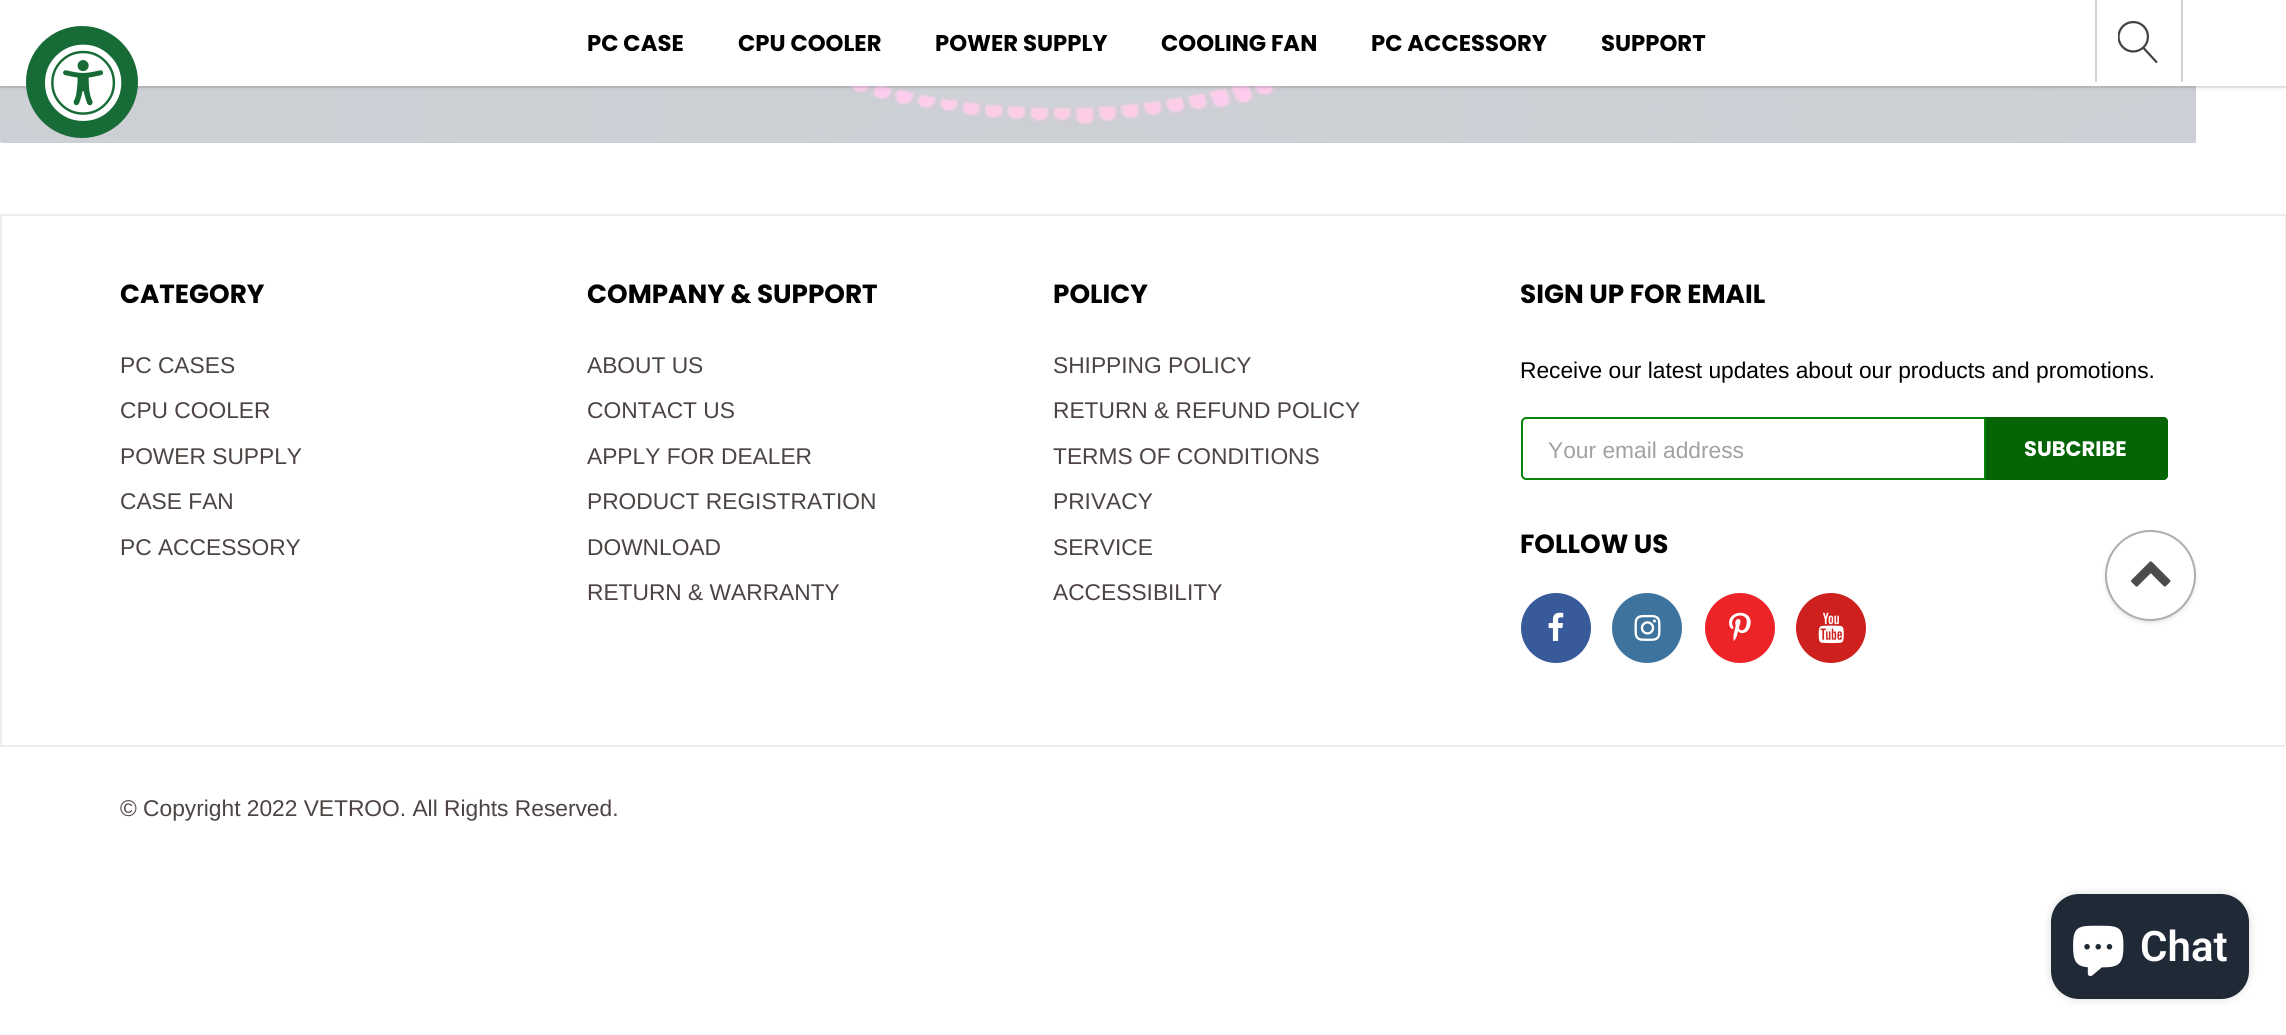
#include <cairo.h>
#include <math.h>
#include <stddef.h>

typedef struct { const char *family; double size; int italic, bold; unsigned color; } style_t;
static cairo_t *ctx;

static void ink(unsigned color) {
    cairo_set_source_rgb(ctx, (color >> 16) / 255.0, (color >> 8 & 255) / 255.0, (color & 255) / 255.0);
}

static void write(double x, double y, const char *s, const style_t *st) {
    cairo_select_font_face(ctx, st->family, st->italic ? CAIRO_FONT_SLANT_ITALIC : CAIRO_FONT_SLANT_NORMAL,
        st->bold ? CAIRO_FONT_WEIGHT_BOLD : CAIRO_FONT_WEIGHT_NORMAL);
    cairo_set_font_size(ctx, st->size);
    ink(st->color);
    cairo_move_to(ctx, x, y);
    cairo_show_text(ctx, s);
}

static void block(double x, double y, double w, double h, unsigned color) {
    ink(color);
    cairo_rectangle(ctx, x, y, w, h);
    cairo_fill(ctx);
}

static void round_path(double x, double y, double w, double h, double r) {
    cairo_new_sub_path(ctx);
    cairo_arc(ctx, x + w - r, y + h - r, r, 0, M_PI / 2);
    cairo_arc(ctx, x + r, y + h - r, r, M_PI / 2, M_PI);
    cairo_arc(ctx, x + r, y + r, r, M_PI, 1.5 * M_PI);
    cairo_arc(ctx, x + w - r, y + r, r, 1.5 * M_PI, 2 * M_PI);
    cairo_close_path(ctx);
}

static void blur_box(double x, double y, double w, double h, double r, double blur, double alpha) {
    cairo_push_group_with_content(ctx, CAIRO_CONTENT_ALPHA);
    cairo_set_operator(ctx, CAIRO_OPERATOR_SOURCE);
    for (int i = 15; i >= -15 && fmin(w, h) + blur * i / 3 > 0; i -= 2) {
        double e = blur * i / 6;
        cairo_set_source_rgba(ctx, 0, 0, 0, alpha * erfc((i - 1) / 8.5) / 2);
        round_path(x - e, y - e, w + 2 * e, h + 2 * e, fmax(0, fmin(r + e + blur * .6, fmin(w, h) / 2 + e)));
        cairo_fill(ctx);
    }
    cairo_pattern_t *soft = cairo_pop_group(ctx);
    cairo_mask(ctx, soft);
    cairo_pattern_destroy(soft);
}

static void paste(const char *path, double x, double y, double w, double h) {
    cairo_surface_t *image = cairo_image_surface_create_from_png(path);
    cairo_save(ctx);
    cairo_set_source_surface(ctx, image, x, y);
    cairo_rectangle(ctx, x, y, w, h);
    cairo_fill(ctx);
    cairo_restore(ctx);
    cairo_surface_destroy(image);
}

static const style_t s1 = {"Poppins", 22.75, 0, 1, 0x000000};
static const style_t s2 = {"Poppins", 26.25, 0, 1, 0x000000};
static const style_t s3 = {"Arimo", 22.75, 0, 0, 0x4c4442};
static const style_t s4 = {"Arimo", 22.75, 0, 0, 0x000000};
static const style_t s5 = {"Arimo", 22.75, 0, 0, 0xa3a09f};
static const style_t s6 = {"Poppins", 21, 0, 1, 0xffffff};
static const style_t s7 = {"Roboto SemiBold", 42, 0, 0, 0xffffff};

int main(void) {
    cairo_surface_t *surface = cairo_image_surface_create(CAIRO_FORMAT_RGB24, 2286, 1035);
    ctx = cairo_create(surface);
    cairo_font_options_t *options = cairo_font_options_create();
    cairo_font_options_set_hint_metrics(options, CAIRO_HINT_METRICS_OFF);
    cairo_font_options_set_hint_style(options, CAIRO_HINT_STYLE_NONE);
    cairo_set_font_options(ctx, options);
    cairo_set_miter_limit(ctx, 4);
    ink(0xffffff);
    cairo_paint(ctx);
    paste("pic8.png", 0, 86, 2196, 57);
    ink(0x000000);
    blur_box(0, 2, 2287, 86, 0, 2, 0.1);
    cairo_rectangle(ctx, -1, -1, 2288, 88);
    cairo_set_source_rgba(ctx, 0, 0, 0, 0.06);
    cairo_stroke(ctx);
    block(0, 0, 2286, 86, 0xffffff);
    ink(0x176b37);
    cairo_arc(ctx, 82, 82, 56, 0, 2 * M_PI);
    cairo_fill(ctx);
    paste("pic1.png", 45, 44, 77, 77);
    write(587, 51, "PC CASE", &s1);
    write(738, 51, "CPU COOLER", &s1);
    write(935, 51, "POWER SUPPLY", &s1);
    write(1161, 51, "COOLING FAN", &s1);
    write(1371, 51, "PC ACCESSORY", &s1);
    write(1601, 51, "SUPPORT", &s1);
    block(2181, 0, 2, 82, 0xd2d2d3);
    block(2095, 0, 2, 82, 0xd2d2d3);
    paste("pic2.png", 2118, 21, 40, 42);
    cairo_rectangle(ctx, 1, 215, 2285, 531);
    ink(0xededed);
    cairo_stroke(ctx);
    write(120, 303, "CATEGORY", &s2);
    write(120, 373, "PC CASES", &s3);
    write(120, 418, "CPU COOLER", &s3);
    write(120, 464, "POWER SUPPLY", &s3);
    write(120, 509, "CASE FAN", &s3);
    write(120, 555, "PC ACCESSORY", &s3);
    write(587, 303, "COMPANY & SUPPORT", &s2);
    write(587, 373, "ABOUT US", &s3);
    write(587, 418, "CONTACT US", &s3);
    write(587, 464, "APPLY FOR DEALER", &s3);
    write(587, 509, "PRODUCT REGISTRATION", &s3);
    write(587, 555, "DOWNLOAD", &s3);
    write(587, 600, "RETURN & WARRANTY", &s3);
    write(1053, 303, "POLICY", &s2);
    write(1053, 373, "SHIPPING POLICY", &s3);
    write(1053, 418, "RETURN & REFUND POLICY", &s3);
    write(1053, 464, "TERMS OF CONDITIONS", &s3);
    write(1053, 509, "PRIVACY", &s3);
    write(1053, 555, "SERVICE", &s3);
    write(1053, 600, "ACCESSIBILITY", &s3);
    write(1520, 303, "SIGN UP FOR EMAIL", &s2);
    write(1520, 378, "Receive our latest updates about our products and promotions.", &s4);
    cairo_new_path(ctx);
    cairo_move_to(ctx, 1526, 418);
    cairo_line_to(ctx, 1985, 418);
    cairo_line_to(ctx, 1985, 479);
    cairo_line_to(ctx, 1526, 479);
    cairo_curve_to(ctx, 1524, 479, 1522, 477, 1522, 475);
    cairo_line_to(ctx, 1522, 422);
    cairo_curve_to(ctx, 1522, 420, 1524, 418, 1526, 418);
    cairo_close_path(ctx);
    ink(0x078408);
    cairo_stroke(ctx);
    write(1548, 458, "Your email address", &s5);
    ink(0x056406);
    cairo_new_path(ctx);
    cairo_move_to(ctx, 1986, 417);
    cairo_line_to(ctx, 2163, 417);
    cairo_curve_to(ctx, 2166, 417, 2168, 419, 2168, 422);
    cairo_line_to(ctx, 2168, 475);
    cairo_curve_to(ctx, 2168, 478, 2166, 480, 2163, 480);
    cairo_line_to(ctx, 1986, 480);
    cairo_close_path(ctx);
    cairo_fill(ctx);
    cairo_save(ctx);
    round_path(1521, 417, 647, 63, 5);
    cairo_clip(ctx);
    block(1986, 417, 182, 2, 0x056406);
    block(2167, 417, 1, 63, 0x056406);
    block(1986, 478, 182, 2, 0x056406);
    cairo_restore(ctx);
    write(2024, 456, "SUBCRIBE", &s6);
    write(1520, 553, "FOLLOW US", &s2);
    ink(0x385a9a);
    cairo_new_path(ctx);
    cairo_arc(ctx, 1556, 628, 35, 0, 2 * M_PI);
    cairo_fill(ctx);
    paste("pic3.png", 1548, 612, 16, 29);
    ink(0x3e739d);
    cairo_arc(ctx, 1647, 628, 35, 0, 2 * M_PI);
    cairo_fill(ctx);
    paste("pic4.png", 1634, 614, 27, 27);
    ink(0xec2327);
    cairo_arc(ctx, 1740, 628, 35, 0, 2 * M_PI);
    cairo_fill(ctx);
    paste("pic5.png", 1729, 612, 22, 29);
    ink(0xcd201f);
    cairo_arc(ctx, 1831, 628, 35, 0, 2 * M_PI);
    cairo_fill(ctx);
    paste("pic6.png", 1818, 612, 26, 32);
    write(120, 816, "© Copyright 2022 VETROO. All Rights Reserved.", &s3);
    ink(0x000000);
    blur_box(2105, 532, 91, 91, 45.5, 2, 0.1);
    ink(0xffffff);
    cairo_arc(ctx, 2150.5, 575.5, 44.5, 0, 2 * M_PI);
    cairo_fill_preserve(ctx);
    ink(0xaeaeae);
    cairo_stroke(ctx);
    paste("pic7.png", 2131, 561, 40, 26);
    ink(0x000000);
    blur_box(2051, 894, 198, 105, 28, 4.5, 0.15);
    ink(0x202a36);
    round_path(2051, 894, 198, 105, 28);
    cairo_fill(ctx);
    paste("pic9.png", 2073, 925, 51, 52);
    write(2140, 961, "Chat", &s7);
    cairo_surface_write_to_png(surface, "screenshot.png");
    cairo_font_options_destroy(options);
    cairo_destroy(ctx);
    cairo_surface_destroy(surface);
    return 0;
}
